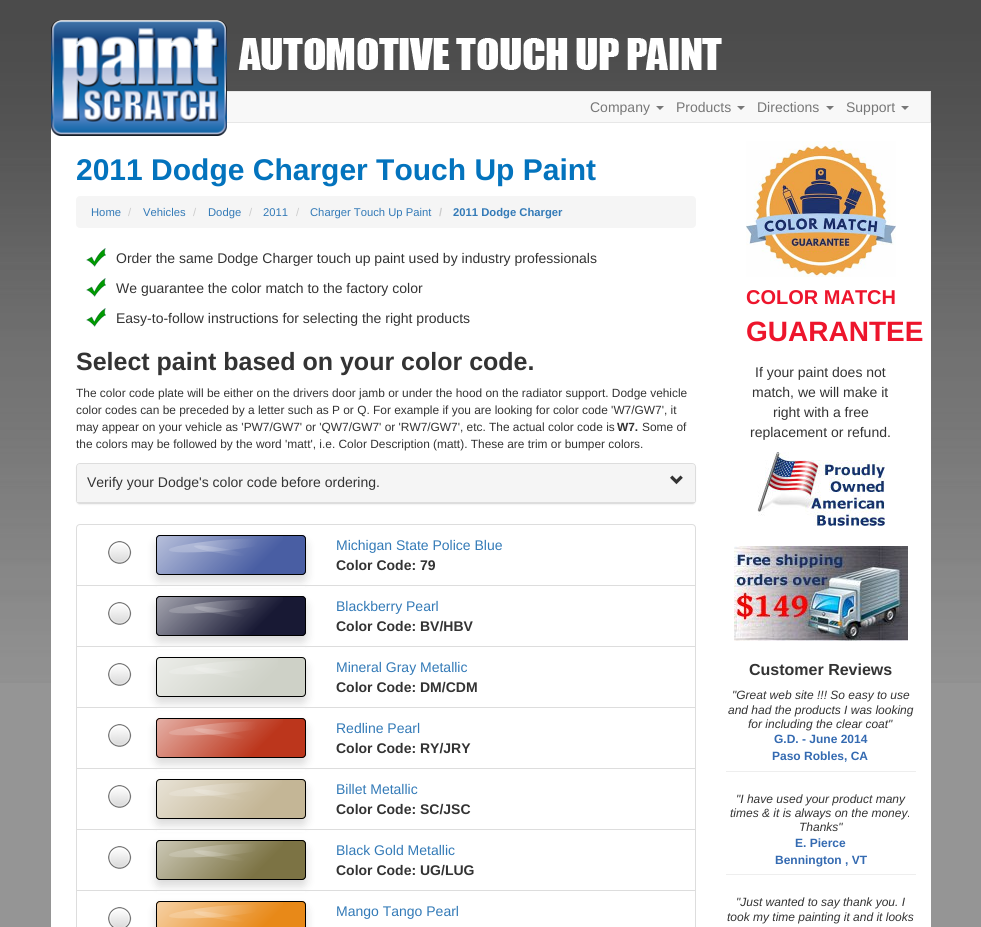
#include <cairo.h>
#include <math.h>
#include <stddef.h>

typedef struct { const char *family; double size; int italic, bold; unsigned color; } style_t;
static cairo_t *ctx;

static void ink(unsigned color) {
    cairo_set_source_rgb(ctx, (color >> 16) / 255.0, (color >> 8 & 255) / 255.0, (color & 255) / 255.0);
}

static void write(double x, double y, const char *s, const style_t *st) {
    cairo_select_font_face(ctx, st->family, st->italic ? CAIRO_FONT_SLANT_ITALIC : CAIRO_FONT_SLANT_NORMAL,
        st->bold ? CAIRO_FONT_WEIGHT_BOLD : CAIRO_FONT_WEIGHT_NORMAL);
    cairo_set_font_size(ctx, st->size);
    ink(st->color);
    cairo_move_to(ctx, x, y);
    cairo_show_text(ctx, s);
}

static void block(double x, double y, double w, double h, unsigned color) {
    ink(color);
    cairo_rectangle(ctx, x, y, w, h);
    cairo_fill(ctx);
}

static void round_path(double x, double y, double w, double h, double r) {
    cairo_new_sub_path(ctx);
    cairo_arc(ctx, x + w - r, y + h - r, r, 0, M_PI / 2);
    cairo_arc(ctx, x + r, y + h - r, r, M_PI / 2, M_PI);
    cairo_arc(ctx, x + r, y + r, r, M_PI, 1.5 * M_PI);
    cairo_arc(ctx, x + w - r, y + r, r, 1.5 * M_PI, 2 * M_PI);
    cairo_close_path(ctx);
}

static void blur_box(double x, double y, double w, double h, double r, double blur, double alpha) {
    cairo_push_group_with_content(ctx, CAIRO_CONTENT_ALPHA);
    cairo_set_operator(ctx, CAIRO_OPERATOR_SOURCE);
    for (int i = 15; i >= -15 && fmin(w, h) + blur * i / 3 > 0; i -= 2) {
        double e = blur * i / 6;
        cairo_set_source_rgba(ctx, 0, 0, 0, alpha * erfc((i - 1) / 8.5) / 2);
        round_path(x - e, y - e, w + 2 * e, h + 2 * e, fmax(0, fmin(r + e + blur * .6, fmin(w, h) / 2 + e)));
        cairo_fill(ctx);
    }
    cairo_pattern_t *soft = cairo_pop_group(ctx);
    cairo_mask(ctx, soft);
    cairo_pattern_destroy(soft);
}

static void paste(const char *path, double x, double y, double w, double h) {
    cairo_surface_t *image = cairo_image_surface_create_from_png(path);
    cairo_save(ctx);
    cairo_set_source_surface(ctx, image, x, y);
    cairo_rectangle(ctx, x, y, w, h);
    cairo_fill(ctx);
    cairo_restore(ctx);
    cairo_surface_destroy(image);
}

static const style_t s1 = {"Liberation Sans", 14, 0, 0, 0x777777};
static const style_t s2 = {"Liberation Sans", 30, 0, 1, 0x0373bd};
static const style_t s3 = {"Liberation Sans", 11.25, 0, 0, 0x337ab7};
static const style_t s4 = {"Liberation Sans", 11.25, 0, 0, 0xcccccc};
static const style_t s5 = {"Liberation Sans", 11.25, 0, 1, 0xcccccc};
static const style_t s6 = {"Liberation Sans", 11.25, 0, 1, 0x337ab7};
static const style_t s7 = {"Liberation Sans", 14, 0, 0, 0x333333};
static const style_t s8 = {"Liberation Sans", 25, 0, 1, 0x333333};
static const style_t s9 = {"Liberation Sans", 11.9, 0, 0, 0x333333};
static const style_t s10 = {"Liberation Sans", 11.9, 0, 1, 0x333333};
static const style_t s11 = {"Liberation Sans", 14, 0, 0, 0x337ab7};
static const style_t s12 = {"Liberation Sans", 14, 0, 1, 0x333333};
static const style_t s13 = {"Liberation Sans", 20, 0, 1, 0xed152c};
static const style_t s14 = {"Liberation Sans", 28, 0, 1, 0xed152c};
static const style_t s15 = {"Liberation Sans", 16, 0, 1, 0x333333};
static const style_t s16 = {"Liberation Sans", 12, 1, 0, 0x333333};
static const style_t s17 = {"Liberation Sans", 12, 0, 1, 0x346ab1};

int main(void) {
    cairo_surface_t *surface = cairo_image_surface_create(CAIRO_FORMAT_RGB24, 981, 927);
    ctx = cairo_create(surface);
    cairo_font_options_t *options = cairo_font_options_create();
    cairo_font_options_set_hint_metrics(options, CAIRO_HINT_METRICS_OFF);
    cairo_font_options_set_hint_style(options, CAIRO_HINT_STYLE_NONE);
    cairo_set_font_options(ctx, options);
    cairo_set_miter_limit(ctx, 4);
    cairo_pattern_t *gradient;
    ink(0x959595);
    cairo_paint(ctx);
    paste("pic1.png", 0, 0, 981, 683);
    block(227, 92, 703, 30, 0xf8f8f8);
    cairo_rectangle(ctx, 51.5, 91.5, 879, 31);
    ink(0xe7e7e7);
    cairo_set_line_width(ctx, 1);
    cairo_stroke(ctx);
    block(51, 123, 880, 804, 0xffffff);
    paste("pic2.png", 51, 20, 176, 116);
    paste("pic3.png", 238, 38, 484, 32);
    write(590, 112, "Company", &s1);
    cairo_new_path(ctx);
    cairo_move_to(ctx, 656, 106);
    cairo_line_to(ctx, 664, 106);
    cairo_line_to(ctx, 660, 110);
    cairo_close_path(ctx);
    cairo_fill(ctx);
    write(676, 112, "Products", &s1);
    cairo_new_path(ctx);
    cairo_move_to(ctx, 737, 106);
    cairo_line_to(ctx, 745, 106);
    cairo_line_to(ctx, 741, 110);
    cairo_close_path(ctx);
    cairo_fill(ctx);
    write(757, 112, "Directions", &s1);
    cairo_new_path(ctx);
    cairo_move_to(ctx, 826, 106);
    cairo_line_to(ctx, 834, 106);
    cairo_line_to(ctx, 830, 110);
    cairo_close_path(ctx);
    cairo_fill(ctx);
    write(846, 112, "Support", &s1);
    cairo_new_path(ctx);
    cairo_move_to(ctx, 901, 106);
    cairo_line_to(ctx, 909, 106);
    cairo_line_to(ctx, 905, 110);
    cairo_close_path(ctx);
    cairo_fill(ctx);
    write(76, 180, "2011 Dodge Charger Touch Up Paint", &s2);
    ink(0xf5f5f5);
    round_path(76, 196, 620, 32, 4);
    cairo_fill(ctx);
    write(91, 216, "Home", &s3);
    write(128, 216, "/", &s4);
    write(143, 216, "Vehicles", &s3);
    write(193, 216, "/", &s4);
    write(208, 216, "Dodge", &s3);
    write(249, 216, "/", &s4);
    write(263, 216, "2011", &s3);
    write(296, 216, "/", &s4);
    write(310, 216, "Charger Touch Up Paint", &s3);
    write(439, 216, "/", &s5);
    write(453, 216, "2011 Dodge Charger", &s6);
    paste("pic4.png", 86, 248, 20, 19);
    write(116, 263, "Order the same Dodge Charger touch up paint used by industry professionals", &s7);
    paste("pic4.png", 86, 278, 20, 19);
    write(116, 293, "We guarantee the color match to the factory color", &s7);
    paste("pic4.png", 86, 308, 20, 19);
    write(116, 323, "Easy-to-follow instructions for selecting the right products", &s7);
    write(76, 370, "Select paint based on your color code.", &s8);
    write(76, 397, "The color code plate will be either on the drivers door jamb or under the hood on the radiator support. Dodge vehicle", &s9);
    write(76, 414, "color codes can be preceded by a letter such as P or Q. For example if you are looking for color code 'W7/GW7', it", &s9);
    write(76, 431, "may appear on your vehicle as 'PW7/GW7' or 'QW7/GW7' or 'RW7/GW7', etc. The actual color code is", &s9);
    write(617, 431, "W7.", &s10);
    write(642, 431, "Some of", &s9);
    write(76, 448, "the colors may be followed by the word 'matt', i.e. Color Description (matt). These are trim or bumper colors.", &s9);
    ink(0x000000);
    blur_box(76, 464, 620, 41, 4, 0.5, 0.05);
    round_path(76.5, 463.5, 619, 40, 3.5);
    ink(0xdddddd);
    cairo_stroke(ctx);
    ink(0xf5f5f5);
    cairo_new_path(ctx);
    cairo_move_to(ctx, 80, 464);
    cairo_line_to(ctx, 692, 464);
    cairo_curve_to(ctx, 693.5, 464, 695, 465.5, 695, 467);
    cairo_line_to(ctx, 695, 503);
    cairo_line_to(ctx, 77, 503);
    cairo_line_to(ctx, 77, 467);
    cairo_curve_to(ctx, 77, 465.5, 78.5, 464, 80, 464);
    cairo_close_path(ctx);
    cairo_fill(ctx);
    block(77, 502, 618, 1, 0xdddddd);
    write(87, 487, "Verify your Dodge's color code before ordering.", &s7);
    paste("pic5.png", 670, 475, 13, 10);
    cairo_new_path(ctx);
    cairo_move_to(ctx, 80, 524.5);
    cairo_line_to(ctx, 692, 524.5);
    cairo_curve_to(ctx, 694, 524.5, 695.5, 526, 695.5, 528);
    cairo_line_to(ctx, 695.5, 585.5);
    cairo_line_to(ctx, 76.5, 585.5);
    cairo_line_to(ctx, 76.5, 528);
    cairo_curve_to(ctx, 76.5, 526, 78, 524.5, 80, 524.5);
    cairo_close_path(ctx);
    ink(0xdddddd);
    cairo_stroke(ctx);
    paste("pic6.png", 108, 541, 24, 23);
    ink(0x000000);
    blur_box(156, 541, 150, 40, 4, 5, 0.15);
    ink(0x495ea3);
    round_path(156, 535, 150, 40, 4);
    cairo_fill(ctx);
    gradient = cairo_pattern_create_linear(185, 509, 278, 602);
    cairo_pattern_add_color_stop_rgba(gradient, 0, 1, 1, 1, 0.6);
    cairo_pattern_add_color_stop_rgba(gradient, 0.7, 1, 1, 1, 0);
    cairo_set_source(ctx, gradient);
    cairo_pattern_destroy(gradient);
    cairo_rectangle(ctx, 157, 536, 126, 38);
    cairo_fill(ctx);
    round_path(156.5, 535.5, 149, 39, 3.5);
    ink(0x000000);
    cairo_stroke(ctx);
    gradient = cairo_pattern_create_radial(199, 545, 0, 199, 545, 73);
    cairo_pattern_add_color_stop_rgba(gradient, 0, 1, 1, 1, 0.3);
    cairo_pattern_add_color_stop_rgba(gradient, 0.8, 1, 1, 1, 0);
    cairo_set_source(ctx, gradient);
    cairo_pattern_destroy(gradient);
    cairo_new_path(ctx);
    cairo_move_to(ctx, 220, 540);
    cairo_curve_to(ctx, 248, 538, 271, 538, 272, 541);
    cairo_curve_to(ctx, 272, 544, 249, 548, 221, 551);
    cairo_curve_to(ctx, 192, 553, 169, 553, 169, 550);
    cairo_curve_to(ctx, 168, 547, 191, 543, 220, 540);
    cairo_close_path(ctx);
    cairo_fill(ctx);
    gradient = cairo_pattern_create_radial(204, 546, 0, 204, 546, 42);
    cairo_pattern_add_color_stop_rgba(gradient, 0, 1, 1, 1, 0.2);
    cairo_pattern_add_color_stop_rgba(gradient, 1, 1, 1, 1, 0);
    cairo_set_source(ctx, gradient);
    cairo_pattern_destroy(gradient);
    cairo_new_path(ctx);
    cairo_move_to(ctx, 220, 548);
    cairo_curve_to(ctx, 234, 550, 245, 554, 245, 555);
    cairo_curve_to(ctx, 245, 557, 233, 556, 219, 553);
    cairo_curve_to(ctx, 205, 551, 194, 548, 194, 546);
    cairo_curve_to(ctx, 194, 545, 206, 545, 220, 548);
    cairo_close_path(ctx);
    cairo_fill(ctx);
    write(336, 550, "Michigan State Police Blue", &s11);
    write(336, 570, "Color Code: 79", &s12);
    block(157, 586, 148, 2, 0xffffff);
    cairo_rectangle(ctx, 76.5, 585.5, 619, 61);
    ink(0xdddddd);
    cairo_stroke(ctx);
    paste("pic6.png", 108, 602, 24, 23);
    ink(0x000000);
    blur_box(156, 602, 150, 40, 4, 5, 0.15);
    ink(0x181934);
    round_path(156, 596, 150, 40, 4);
    cairo_fill(ctx);
    gradient = cairo_pattern_create_linear(185, 570, 278, 663);
    cairo_pattern_add_color_stop_rgba(gradient, 0, 1, 1, 1, 0.6);
    cairo_pattern_add_color_stop_rgba(gradient, 0.7, 1, 1, 1, 0);
    cairo_set_source(ctx, gradient);
    cairo_pattern_destroy(gradient);
    cairo_rectangle(ctx, 157, 597, 126, 38);
    cairo_fill(ctx);
    round_path(156.5, 596.5, 149, 39, 3.5);
    ink(0x000000);
    cairo_stroke(ctx);
    gradient = cairo_pattern_create_radial(199, 606, 0, 199, 606, 73);
    cairo_pattern_add_color_stop_rgba(gradient, 0, 1, 1, 1, 0.3);
    cairo_pattern_add_color_stop_rgba(gradient, 0.8, 1, 1, 1, 0);
    cairo_set_source(ctx, gradient);
    cairo_pattern_destroy(gradient);
    cairo_new_path(ctx);
    cairo_move_to(ctx, 220, 601);
    cairo_curve_to(ctx, 248, 599, 271, 599, 272, 602);
    cairo_curve_to(ctx, 272, 605, 249, 609, 221, 612);
    cairo_curve_to(ctx, 192, 614, 169, 614, 169, 611);
    cairo_curve_to(ctx, 168, 608, 191, 604, 220, 601);
    cairo_close_path(ctx);
    cairo_fill(ctx);
    gradient = cairo_pattern_create_radial(204, 607, 0, 204, 607, 42);
    cairo_pattern_add_color_stop_rgba(gradient, 0, 1, 1, 1, 0.2);
    cairo_pattern_add_color_stop_rgba(gradient, 1, 1, 1, 1, 0);
    cairo_set_source(ctx, gradient);
    cairo_pattern_destroy(gradient);
    cairo_new_path(ctx);
    cairo_move_to(ctx, 220, 609);
    cairo_curve_to(ctx, 234, 611, 245, 615, 245, 616);
    cairo_curve_to(ctx, 245, 618, 233, 617, 219, 614);
    cairo_curve_to(ctx, 205, 612, 194, 609, 194, 607);
    cairo_curve_to(ctx, 194, 606, 206, 606, 220, 609);
    cairo_close_path(ctx);
    cairo_fill(ctx);
    write(336, 611, "Blackberry Pearl", &s11);
    write(336, 631, "Color Code: BV/HBV", &s12);
    block(157, 647, 148, 2, 0xffffff);
    cairo_rectangle(ctx, 76.5, 646.5, 619, 61);
    ink(0xdddddd);
    cairo_stroke(ctx);
    paste("pic6.png", 108, 663, 24, 23);
    ink(0x000000);
    blur_box(156, 663, 150, 40, 4, 5, 0.15);
    ink(0xced1c7);
    round_path(156, 657, 150, 40, 4);
    cairo_fill(ctx);
    gradient = cairo_pattern_create_linear(185, 631, 278, 724);
    cairo_pattern_add_color_stop_rgba(gradient, 0, 1, 1, 1, 0.6);
    cairo_pattern_add_color_stop_rgba(gradient, 0.7, 1, 1, 1, 0);
    cairo_set_source(ctx, gradient);
    cairo_pattern_destroy(gradient);
    cairo_rectangle(ctx, 157, 658, 121, 38);
    cairo_fill(ctx);
    round_path(156.5, 657.5, 149, 39, 3.5);
    ink(0x000000);
    cairo_stroke(ctx);
    gradient = cairo_pattern_create_radial(199, 667, 0, 199, 667, 73);
    cairo_pattern_add_color_stop_rgba(gradient, 0, 1, 1, 1, 0.3);
    cairo_pattern_add_color_stop_rgba(gradient, 0.8, 1, 1, 1, 0);
    cairo_set_source(ctx, gradient);
    cairo_pattern_destroy(gradient);
    cairo_new_path(ctx);
    cairo_move_to(ctx, 220, 662);
    cairo_curve_to(ctx, 248, 660, 271, 660, 272, 663);
    cairo_curve_to(ctx, 272, 666, 249, 670, 221, 673);
    cairo_curve_to(ctx, 192, 675, 169, 675, 169, 672);
    cairo_curve_to(ctx, 168, 669, 191, 665, 220, 662);
    cairo_close_path(ctx);
    cairo_fill(ctx);
    gradient = cairo_pattern_create_radial(204, 668, 0, 204, 668, 42);
    cairo_pattern_add_color_stop_rgba(gradient, 0, 1, 1, 1, 0.2);
    cairo_pattern_add_color_stop_rgba(gradient, 1, 1, 1, 1, 0);
    cairo_set_source(ctx, gradient);
    cairo_pattern_destroy(gradient);
    cairo_new_path(ctx);
    cairo_move_to(ctx, 220, 670);
    cairo_curve_to(ctx, 234, 672, 245, 676, 245, 677);
    cairo_curve_to(ctx, 245, 679, 233, 678, 219, 675);
    cairo_curve_to(ctx, 205, 673, 194, 670, 194, 668);
    cairo_curve_to(ctx, 194, 667, 206, 667, 220, 670);
    cairo_close_path(ctx);
    cairo_fill(ctx);
    write(336, 672, "Mineral Gray Metallic", &s11);
    write(336, 692, "Color Code: DM/CDM", &s12);
    block(157, 708, 148, 2, 0xffffff);
    cairo_rectangle(ctx, 76.5, 707.5, 619, 61);
    ink(0xdddddd);
    cairo_stroke(ctx);
    paste("pic6.png", 108, 724, 24, 23);
    ink(0x000000);
    blur_box(156, 724, 150, 40, 4, 5, 0.15);
    ink(0xbc361c);
    round_path(156, 718, 150, 40, 4);
    cairo_fill(ctx);
    gradient = cairo_pattern_create_linear(185, 692, 278, 785);
    cairo_pattern_add_color_stop_rgba(gradient, 0, 1, 1, 1, 0.6);
    cairo_pattern_add_color_stop_rgba(gradient, 0.7, 1, 1, 1, 0);
    cairo_set_source(ctx, gradient);
    cairo_pattern_destroy(gradient);
    cairo_rectangle(ctx, 157, 719, 126, 38);
    cairo_fill(ctx);
    round_path(156.5, 718.5, 149, 39, 3.5);
    ink(0x000000);
    cairo_stroke(ctx);
    gradient = cairo_pattern_create_radial(199, 728, 0, 199, 728, 73);
    cairo_pattern_add_color_stop_rgba(gradient, 0, 1, 1, 1, 0.3);
    cairo_pattern_add_color_stop_rgba(gradient, 0.8, 1, 1, 1, 0);
    cairo_set_source(ctx, gradient);
    cairo_pattern_destroy(gradient);
    cairo_new_path(ctx);
    cairo_move_to(ctx, 220, 723);
    cairo_curve_to(ctx, 248, 721, 271, 721, 272, 724);
    cairo_curve_to(ctx, 272, 727, 249, 731, 221, 734);
    cairo_curve_to(ctx, 192, 736, 169, 736, 169, 733);
    cairo_curve_to(ctx, 168, 730, 191, 726, 220, 723);
    cairo_close_path(ctx);
    cairo_fill(ctx);
    gradient = cairo_pattern_create_radial(204, 729, 0, 204, 729, 42);
    cairo_pattern_add_color_stop_rgba(gradient, 0, 1, 1, 1, 0.2);
    cairo_pattern_add_color_stop_rgba(gradient, 1, 1, 1, 1, 0);
    cairo_set_source(ctx, gradient);
    cairo_pattern_destroy(gradient);
    cairo_new_path(ctx);
    cairo_move_to(ctx, 220, 731);
    cairo_curve_to(ctx, 234, 733, 245, 737, 245, 738);
    cairo_curve_to(ctx, 245, 740, 233, 739, 219, 736);
    cairo_curve_to(ctx, 205, 734, 194, 731, 194, 729);
    cairo_curve_to(ctx, 194, 728, 206, 728, 220, 731);
    cairo_close_path(ctx);
    cairo_fill(ctx);
    write(336, 733, "Redline Pearl", &s11);
    write(336, 753, "Color Code: RY/JRY", &s12);
    block(157, 769, 148, 2, 0xffffff);
    cairo_rectangle(ctx, 76.5, 768.5, 619, 61);
    ink(0xdddddd);
    cairo_stroke(ctx);
    paste("pic6.png", 108, 785, 24, 23);
    ink(0x000000);
    blur_box(156, 785, 150, 40, 4, 5, 0.15);
    ink(0xc4b696);
    round_path(156, 779, 150, 40, 4);
    cairo_fill(ctx);
    gradient = cairo_pattern_create_linear(185, 753, 278, 846);
    cairo_pattern_add_color_stop_rgba(gradient, 0, 1, 1, 1, 0.6);
    cairo_pattern_add_color_stop_rgba(gradient, 0.7, 1, 1, 1, 0);
    cairo_set_source(ctx, gradient);
    cairo_pattern_destroy(gradient);
    cairo_rectangle(ctx, 157, 780, 125, 38);
    cairo_fill(ctx);
    round_path(156.5, 779.5, 149, 39, 3.5);
    ink(0x000000);
    cairo_stroke(ctx);
    gradient = cairo_pattern_create_radial(199, 789, 0, 199, 789, 73);
    cairo_pattern_add_color_stop_rgba(gradient, 0, 1, 1, 1, 0.3);
    cairo_pattern_add_color_stop_rgba(gradient, 0.8, 1, 1, 1, 0);
    cairo_set_source(ctx, gradient);
    cairo_pattern_destroy(gradient);
    cairo_new_path(ctx);
    cairo_move_to(ctx, 220, 784);
    cairo_curve_to(ctx, 248, 782, 271, 782, 272, 785);
    cairo_curve_to(ctx, 272, 788, 249, 792, 221, 795);
    cairo_curve_to(ctx, 192, 797, 169, 797, 169, 794);
    cairo_curve_to(ctx, 168, 791, 191, 787, 220, 784);
    cairo_close_path(ctx);
    cairo_fill(ctx);
    gradient = cairo_pattern_create_radial(204, 790, 0, 204, 790, 42);
    cairo_pattern_add_color_stop_rgba(gradient, 0, 1, 1, 1, 0.2);
    cairo_pattern_add_color_stop_rgba(gradient, 1, 1, 1, 1, 0);
    cairo_set_source(ctx, gradient);
    cairo_pattern_destroy(gradient);
    cairo_new_path(ctx);
    cairo_move_to(ctx, 220, 792);
    cairo_curve_to(ctx, 234, 794, 245, 798, 245, 799);
    cairo_curve_to(ctx, 245, 801, 233, 800, 219, 797);
    cairo_curve_to(ctx, 205, 795, 194, 792, 194, 790);
    cairo_curve_to(ctx, 194, 789, 206, 789, 220, 792);
    cairo_close_path(ctx);
    cairo_fill(ctx);
    write(336, 794, "Billet Metallic", &s11);
    write(336, 814, "Color Code: SC/JSC", &s12);
    block(157, 830, 148, 2, 0xffffff);
    cairo_rectangle(ctx, 76.5, 829.5, 619, 61);
    ink(0xdddddd);
    cairo_stroke(ctx);
    paste("pic6.png", 108, 846, 24, 23);
    ink(0x000000);
    blur_box(156, 846, 150, 40, 4, 5, 0.15);
    ink(0x7c7344);
    round_path(156, 840, 150, 40, 4);
    cairo_fill(ctx);
    gradient = cairo_pattern_create_linear(185, 814, 278, 907);
    cairo_pattern_add_color_stop_rgba(gradient, 0, 1, 1, 1, 0.6);
    cairo_pattern_add_color_stop_rgba(gradient, 0.7, 1, 1, 1, 0);
    cairo_set_source(ctx, gradient);
    cairo_pattern_destroy(gradient);
    cairo_rectangle(ctx, 157, 841, 126, 38);
    cairo_fill(ctx);
    round_path(156.5, 840.5, 149, 39, 3.5);
    ink(0x000000);
    cairo_stroke(ctx);
    gradient = cairo_pattern_create_radial(199, 850, 0, 199, 850, 73);
    cairo_pattern_add_color_stop_rgba(gradient, 0, 1, 1, 1, 0.3);
    cairo_pattern_add_color_stop_rgba(gradient, 0.8, 1, 1, 1, 0);
    cairo_set_source(ctx, gradient);
    cairo_pattern_destroy(gradient);
    cairo_new_path(ctx);
    cairo_move_to(ctx, 220, 845);
    cairo_curve_to(ctx, 248, 843, 271, 843, 272, 846);
    cairo_curve_to(ctx, 272, 849, 249, 853, 221, 856);
    cairo_curve_to(ctx, 192, 858, 169, 858, 169, 855);
    cairo_curve_to(ctx, 168, 852, 191, 848, 220, 845);
    cairo_close_path(ctx);
    cairo_fill(ctx);
    gradient = cairo_pattern_create_radial(204, 851, 0, 204, 851, 42);
    cairo_pattern_add_color_stop_rgba(gradient, 0, 1, 1, 1, 0.2);
    cairo_pattern_add_color_stop_rgba(gradient, 1, 1, 1, 1, 0);
    cairo_set_source(ctx, gradient);
    cairo_pattern_destroy(gradient);
    cairo_new_path(ctx);
    cairo_move_to(ctx, 220, 853);
    cairo_curve_to(ctx, 234, 855, 245, 859, 245, 860);
    cairo_curve_to(ctx, 245, 862, 233, 861, 219, 858);
    cairo_curve_to(ctx, 205, 856, 194, 853, 194, 851);
    cairo_curve_to(ctx, 194, 850, 206, 850, 220, 853);
    cairo_close_path(ctx);
    cairo_fill(ctx);
    write(336, 855, "Black Gold Metallic", &s11);
    write(336, 875, "Color Code: UG/LUG", &s12);
    block(157, 891, 148, 2, 0xffffff);
    cairo_rectangle(ctx, 76.5, 890.5, 619, 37);
    ink(0xdddddd);
    cairo_stroke(ctx);
    paste("pic7.png", 108, 907, 24, 20);
    ink(0x000000);
    blur_box(156, 907, 150, 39, 4, 5, 0.15);
    ink(0xe88918);
    round_path(156, 901, 150, 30, 4);
    cairo_fill(ctx);
    gradient = cairo_pattern_create_linear(185, 875, 278, 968);
    cairo_pattern_add_color_stop_rgba(gradient, 0, 1, 1, 1, 0.6);
    cairo_pattern_add_color_stop_rgba(gradient, 0.7, 1, 1, 1, 0);
    cairo_set_source(ctx, gradient);
    cairo_pattern_destroy(gradient);
    cairo_rectangle(ctx, 157, 902, 126, 25);
    cairo_fill(ctx);
    round_path(156.5, 901.5, 149, 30, 3.5);
    ink(0x000000);
    cairo_stroke(ctx);
    gradient = cairo_pattern_create_radial(199, 911, 0, 199, 911, 73);
    cairo_pattern_add_color_stop_rgba(gradient, 0, 1, 1, 1, 0.3);
    cairo_pattern_add_color_stop_rgba(gradient, 0.8, 1, 1, 1, 0);
    cairo_set_source(ctx, gradient);
    cairo_pattern_destroy(gradient);
    cairo_new_path(ctx);
    cairo_move_to(ctx, 220, 906);
    cairo_curve_to(ctx, 248, 904, 271, 904, 272, 907);
    cairo_curve_to(ctx, 272, 910, 249, 914, 221, 917);
    cairo_curve_to(ctx, 192, 919, 169, 919, 169, 916);
    cairo_curve_to(ctx, 168, 913, 191, 909, 220, 906);
    cairo_close_path(ctx);
    cairo_fill(ctx);
    gradient = cairo_pattern_create_radial(204, 912, 0, 204, 912, 42);
    cairo_pattern_add_color_stop_rgba(gradient, 0, 1, 1, 1, 0.2);
    cairo_pattern_add_color_stop_rgba(gradient, 1, 1, 1, 1, 0);
    cairo_set_source(ctx, gradient);
    cairo_pattern_destroy(gradient);
    cairo_new_path(ctx);
    cairo_move_to(ctx, 220, 914);
    cairo_curve_to(ctx, 234, 916, 245, 920, 245, 921);
    cairo_curve_to(ctx, 245, 923, 233, 922, 219, 919);
    cairo_curve_to(ctx, 205, 917, 194, 914, 194, 912);
    cairo_curve_to(ctx, 194, 911, 206, 911, 220, 914);
    cairo_close_path(ctx);
    cairo_fill(ctx);
    write(336, 916, "Mango Tango Pearl", &s11);
    paste("pic8.png", 746, 141, 150, 136);
    write(746, 304, "COLOR MATCH", &s13);
    write(746, 341, "GUARANTEE", &s14);
    write(755, 377, "If your paint does not", &s7);
    write(752, 397, "match, we will make it", &s7);
    write(773, 417, "right with a free", &s7);
    write(750, 437, "replacement or refund.", &s7);
    paste("pic9.png", 757, 452, 128, 74);
    paste("pic10.png", 734, 546, 174, 95);
    write(749, 675, "Customer Reviews", &s15);
    write(732, 699, "\"Great web site !!! So easy to use", &s16);
    write(728, 714, "and had the products I was looking", &s16);
    write(748, 728, "for including the clear coat\"", &s16);
    write(774, 743, "G.D. - June 2014", &s17);
    write(772, 760, "Paso Robles, CA", &s17);
    block(726, 771, 190, 1, 0xeeeeee);
    write(736, 803, "\"I have used your product many", &s16);
    write(730, 817, "times & it is always on the money.", &s16);
    write(799, 831, "Thanks\"", &s16);
    write(795, 847, "E. Pierce", &s17);
    write(775, 864, "Bennington , VT", &s17);
    block(726, 874, 190, 1, 0xeeeeee);
    write(736, 906, "\"Just wanted to say thank you. I", &s16);
    write(727, 921, "took my time painting it and it looks", &s16);
    cairo_surface_write_to_png(surface, "screenshot.png");
    cairo_font_options_destroy(options);
    cairo_destroy(ctx);
    cairo_surface_destroy(surface);
    return 0;
}
